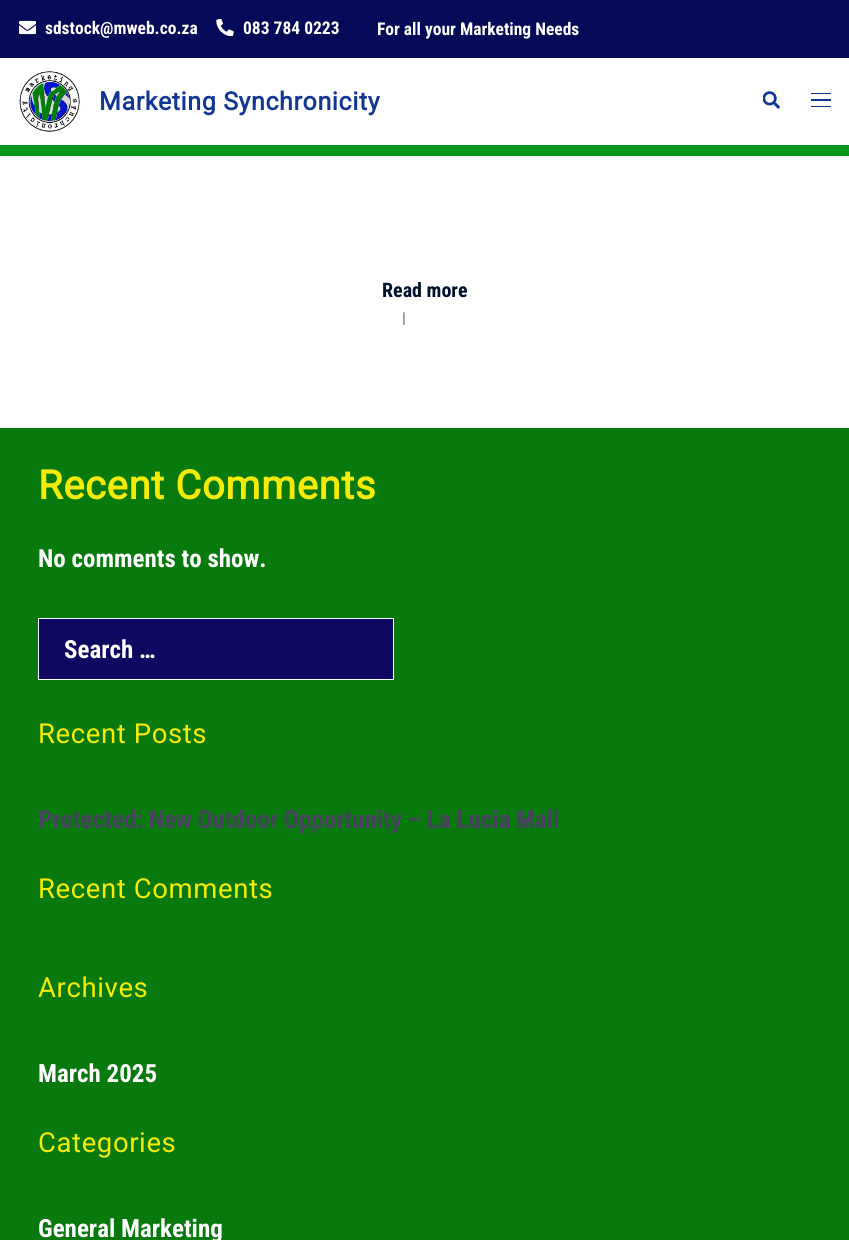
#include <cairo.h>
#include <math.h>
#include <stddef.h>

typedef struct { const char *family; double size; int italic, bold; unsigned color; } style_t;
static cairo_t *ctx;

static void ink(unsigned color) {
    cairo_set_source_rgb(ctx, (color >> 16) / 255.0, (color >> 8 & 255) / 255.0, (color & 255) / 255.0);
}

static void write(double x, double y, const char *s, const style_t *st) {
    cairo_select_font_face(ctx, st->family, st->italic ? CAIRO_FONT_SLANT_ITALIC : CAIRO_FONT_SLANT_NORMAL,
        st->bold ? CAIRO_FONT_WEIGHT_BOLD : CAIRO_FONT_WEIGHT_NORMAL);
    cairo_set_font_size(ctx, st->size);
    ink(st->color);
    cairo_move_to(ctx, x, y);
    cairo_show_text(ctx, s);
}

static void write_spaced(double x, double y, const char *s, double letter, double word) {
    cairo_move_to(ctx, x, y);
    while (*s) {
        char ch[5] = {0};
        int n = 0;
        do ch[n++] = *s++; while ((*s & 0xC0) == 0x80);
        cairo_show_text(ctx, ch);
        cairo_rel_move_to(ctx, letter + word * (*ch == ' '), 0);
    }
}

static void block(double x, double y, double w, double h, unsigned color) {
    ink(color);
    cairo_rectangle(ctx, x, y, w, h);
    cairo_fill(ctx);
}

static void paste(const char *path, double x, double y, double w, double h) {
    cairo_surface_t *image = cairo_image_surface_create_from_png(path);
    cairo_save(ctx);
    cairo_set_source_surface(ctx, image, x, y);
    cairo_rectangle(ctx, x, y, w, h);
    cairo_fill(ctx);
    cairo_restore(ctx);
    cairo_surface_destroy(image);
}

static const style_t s1 = {"Roboto Condensed", 17.5, 0, 1, 0xffffff};
static const style_t s2 = {"Roboto Condensed", 20, 0, 1, 0x00102e};
static const style_t s3 = {"Roboto Condensed", 25, 0, 1, 0xffffff};
static const style_t s4 = {"Roboto Condensed", 25, 0, 1, 0x47425d};

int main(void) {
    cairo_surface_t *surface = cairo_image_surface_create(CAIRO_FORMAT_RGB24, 849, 1240);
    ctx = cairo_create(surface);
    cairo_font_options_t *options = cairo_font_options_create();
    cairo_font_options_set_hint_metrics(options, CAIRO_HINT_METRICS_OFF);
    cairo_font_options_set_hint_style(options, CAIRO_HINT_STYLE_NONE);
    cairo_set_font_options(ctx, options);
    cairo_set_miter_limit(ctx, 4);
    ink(0x040958);
    cairo_paint(ctx);
    paste("pic1.png", 19, 20, 17, 15);
    write(45, 34, "sdstock@mweb.co.za", &s1);
    paste("pic2.png", 216, 19, 18, 17);
    write(243, 34, "083 784 0223", &s1);
    write(377, 35, "For all your Marketing Needs", &s1);
    block(0, 58, 849, 87, 0xffffff);
    block(0, 145, 849, 11, 0x03961b);
    paste("pic3.png", 19, 71, 61, 61);
    cairo_select_font_face(ctx, "Roboto", CAIRO_FONT_SLANT_NORMAL, CAIRO_FONT_WEIGHT_BOLD);
    cairo_set_font_size(ctx, 25);
    ink(0x123693);
    write_spaced(99, 110, "Marketing Synchronicity", 0.6, 0);
    paste("pic4.png", 763, 91, 17, 18);
    block(811, 93, 20, 1, 0x123693);
    block(811, 99, 20, 2, 0x123693);
    block(811, 106, 20, 1, 0x123693);
    block(0, 156, 849, 272, 0xffffff);
    write(382, 297, "Read more", &s2);
    cairo_set_font_size(ctx, 15);
    ink(0x6d7685);
    write_spaced(402, 323, "|", 1, 0);
    block(0, 428, 849, 812, 0x07790d);
    cairo_select_font_face(ctx, "Roboto", CAIRO_FONT_SLANT_NORMAL, CAIRO_FONT_WEIGHT_BOLD);
    cairo_set_font_size(ctx, 40);
    ink(0xf5eb05);
    write_spaced(38, 499, "Recent Comments", 0.6, 0);
    write(38, 567, "No comments to show.", &s3);
    ink(0x0d0961);
    cairo_rectangle(ctx, 38.5, 618.5, 355, 61);
    cairo_fill_preserve(ctx);
    ink(0xfefefe);
    cairo_set_line_width(ctx, 1);
    cairo_stroke(ctx);
    write(64, 658, "Search …", &s3);
    cairo_select_font_face(ctx, "Roboto", CAIRO_FONT_SLANT_NORMAL, CAIRO_FONT_WEIGHT_NORMAL);
    cairo_set_font_size(ctx, 27.5);
    ink(0xf5eb05);
    write_spaced(38, 743, "Recent Posts", 0.6, 0);
    write(38, 828, "Protected: New Outdoor Opportunity – La Lucia Mall", &s4);
    cairo_select_font_face(ctx, "Roboto", CAIRO_FONT_SLANT_NORMAL, CAIRO_FONT_WEIGHT_NORMAL);
    cairo_set_font_size(ctx, 27.5);
    ink(0xf5eb05);
    write_spaced(38, 898, "Recent Comments", 0.6, 0);
    write_spaced(38, 997, "Archives", 0.6, 0);
    write(38, 1082, "March 2025", &s3);
    cairo_select_font_face(ctx, "Roboto", CAIRO_FONT_SLANT_NORMAL, CAIRO_FONT_WEIGHT_NORMAL);
    cairo_set_font_size(ctx, 27.5);
    ink(0xf5eb05);
    write_spaced(38, 1152, "Categories", 0.6, 0);
    write(38, 1237, "General Marketing", &s3);
    cairo_surface_write_to_png(surface, "screenshot.png");
    cairo_font_options_destroy(options);
    cairo_destroy(ctx);
    cairo_surface_destroy(surface);
    return 0;
}
